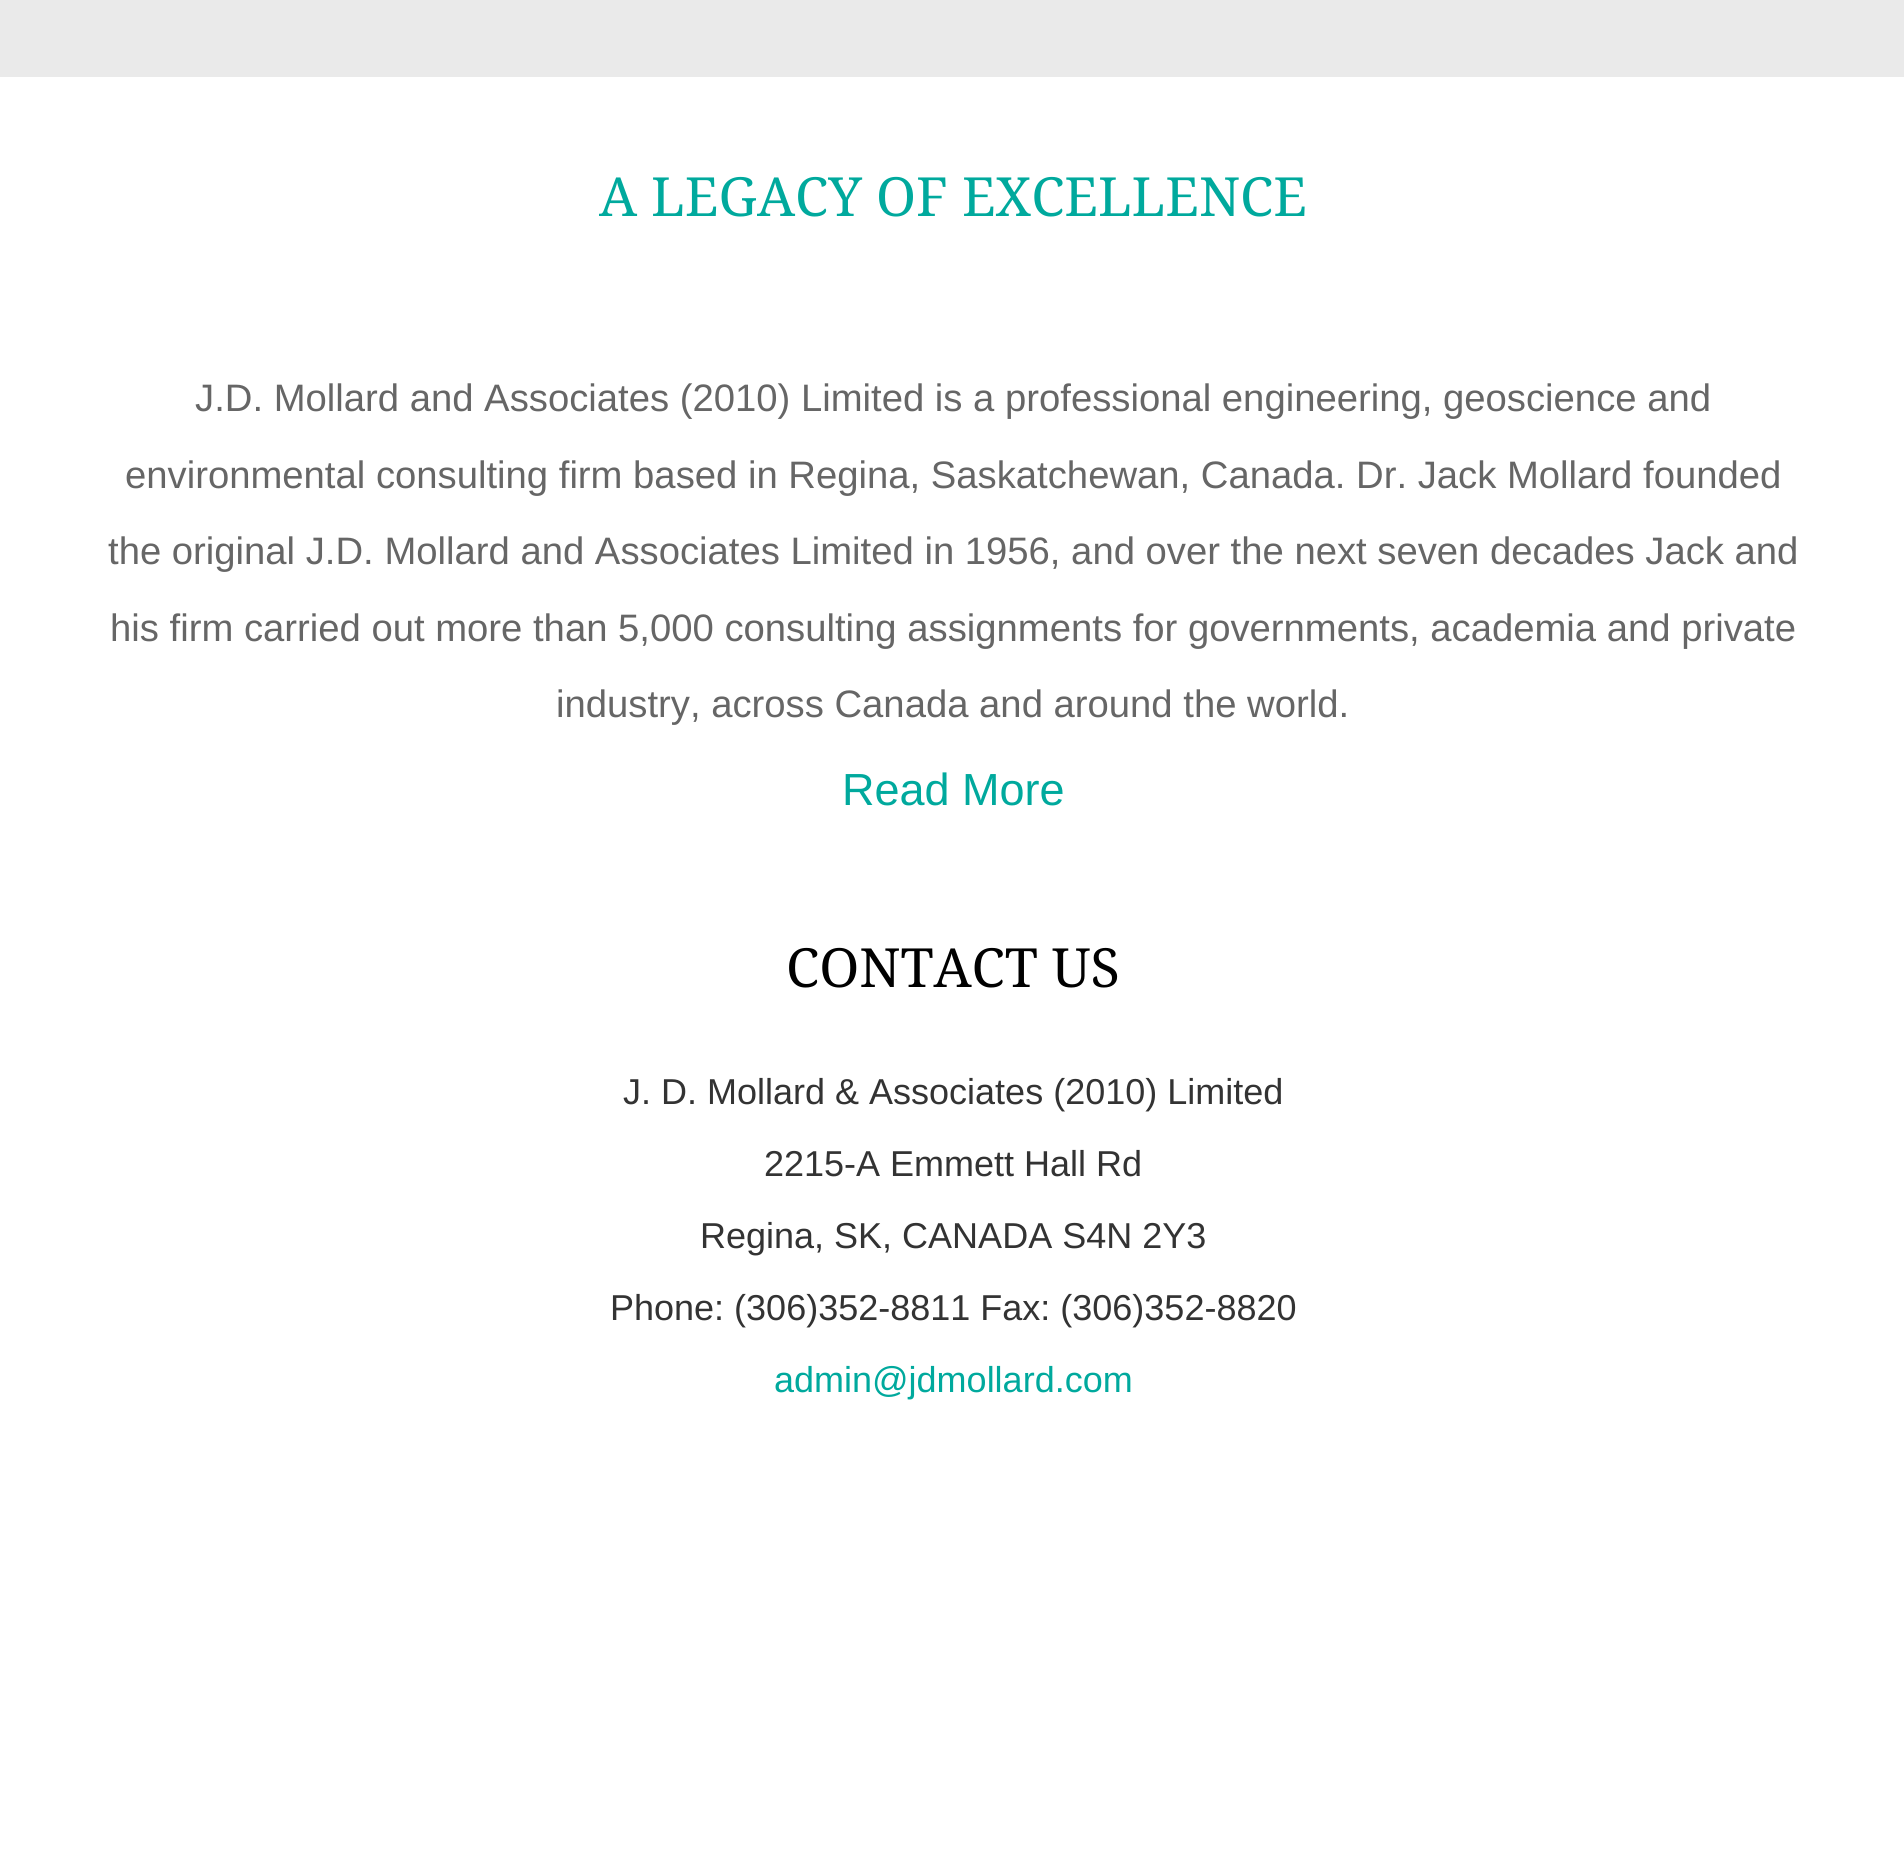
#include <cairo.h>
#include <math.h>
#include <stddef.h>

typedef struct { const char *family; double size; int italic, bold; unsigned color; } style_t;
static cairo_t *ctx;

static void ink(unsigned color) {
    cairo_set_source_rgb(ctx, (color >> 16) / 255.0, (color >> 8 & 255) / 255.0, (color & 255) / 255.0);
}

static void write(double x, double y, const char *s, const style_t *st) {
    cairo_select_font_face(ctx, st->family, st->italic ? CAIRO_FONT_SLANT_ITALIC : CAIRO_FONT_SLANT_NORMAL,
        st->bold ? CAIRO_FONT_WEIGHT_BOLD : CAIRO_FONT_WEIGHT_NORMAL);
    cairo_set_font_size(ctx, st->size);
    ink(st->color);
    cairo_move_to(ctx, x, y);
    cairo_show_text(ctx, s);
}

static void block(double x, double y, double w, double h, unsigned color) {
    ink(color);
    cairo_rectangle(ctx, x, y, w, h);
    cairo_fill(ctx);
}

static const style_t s1 = {"Droid Serif", 54, 0, 0, 0x00a99d};
static const style_t s2 = {"Liberation Sans", 38.25, 0, 0, 0x666666};
static const style_t s3 = {"Liberation Sans", 45, 0, 0, 0x00a99d};
static const style_t s4 = {"Droid Serif", 54, 0, 0, 0x000000};
static const style_t s5 = {"Liberation Sans", 36, 0, 0, 0x333333};
static const style_t s6 = {"Liberation Sans", 36, 0, 0, 0x00a99d};

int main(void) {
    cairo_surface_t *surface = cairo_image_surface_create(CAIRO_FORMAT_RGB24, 1904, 1869);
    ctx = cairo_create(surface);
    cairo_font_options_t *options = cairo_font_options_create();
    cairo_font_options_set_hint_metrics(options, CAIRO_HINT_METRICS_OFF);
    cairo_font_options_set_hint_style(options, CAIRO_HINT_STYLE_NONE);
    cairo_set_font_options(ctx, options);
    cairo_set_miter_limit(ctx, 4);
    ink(0xffffff);
    cairo_paint(ctx);
    block(0, 0, 1904, 77, 0xeaeaea);
    write(599, 216, "A LEGACY OF EXCELLENCE", &s1);
    write(195, 411, "J.D. Mollard and Associates (2010) Limited is a professional engineering, geoscience and", &s2);
    write(125, 488, "environmental consulting firm based in Regina, Saskatchewan, Canada. Dr. Jack Mollard founded", &s2);
    write(108, 564, "the original J.D. Mollard and Associates Limited in 1956, and over the next seven decades Jack and", &s2);
    write(110, 641, "his firm carried out more than 5,000 consulting assignments for governments, academia and private", &s2);
    write(556, 717, "industry, across Canada and around the world.", &s2);
    write(842, 805, "Read More", &s3);
    write(786, 987, "CONTACT US", &s4);
    write(623, 1104, "J. D. Mollard & Associates (2010) Limited", &s5);
    write(764, 1176, "2215-A Emmett Hall Rd", &s5);
    write(700, 1248, "Regina, SK, CANADA S4N 2Y3", &s5);
    write(610, 1320, "Phone: (306)352-8811 Fax: (306)352-8820", &s5);
    write(774, 1392, "admin@jdmollard.com", &s6);
    cairo_surface_write_to_png(surface, "screenshot.png");
    cairo_font_options_destroy(options);
    cairo_destroy(ctx);
    cairo_surface_destroy(surface);
    return 0;
}
